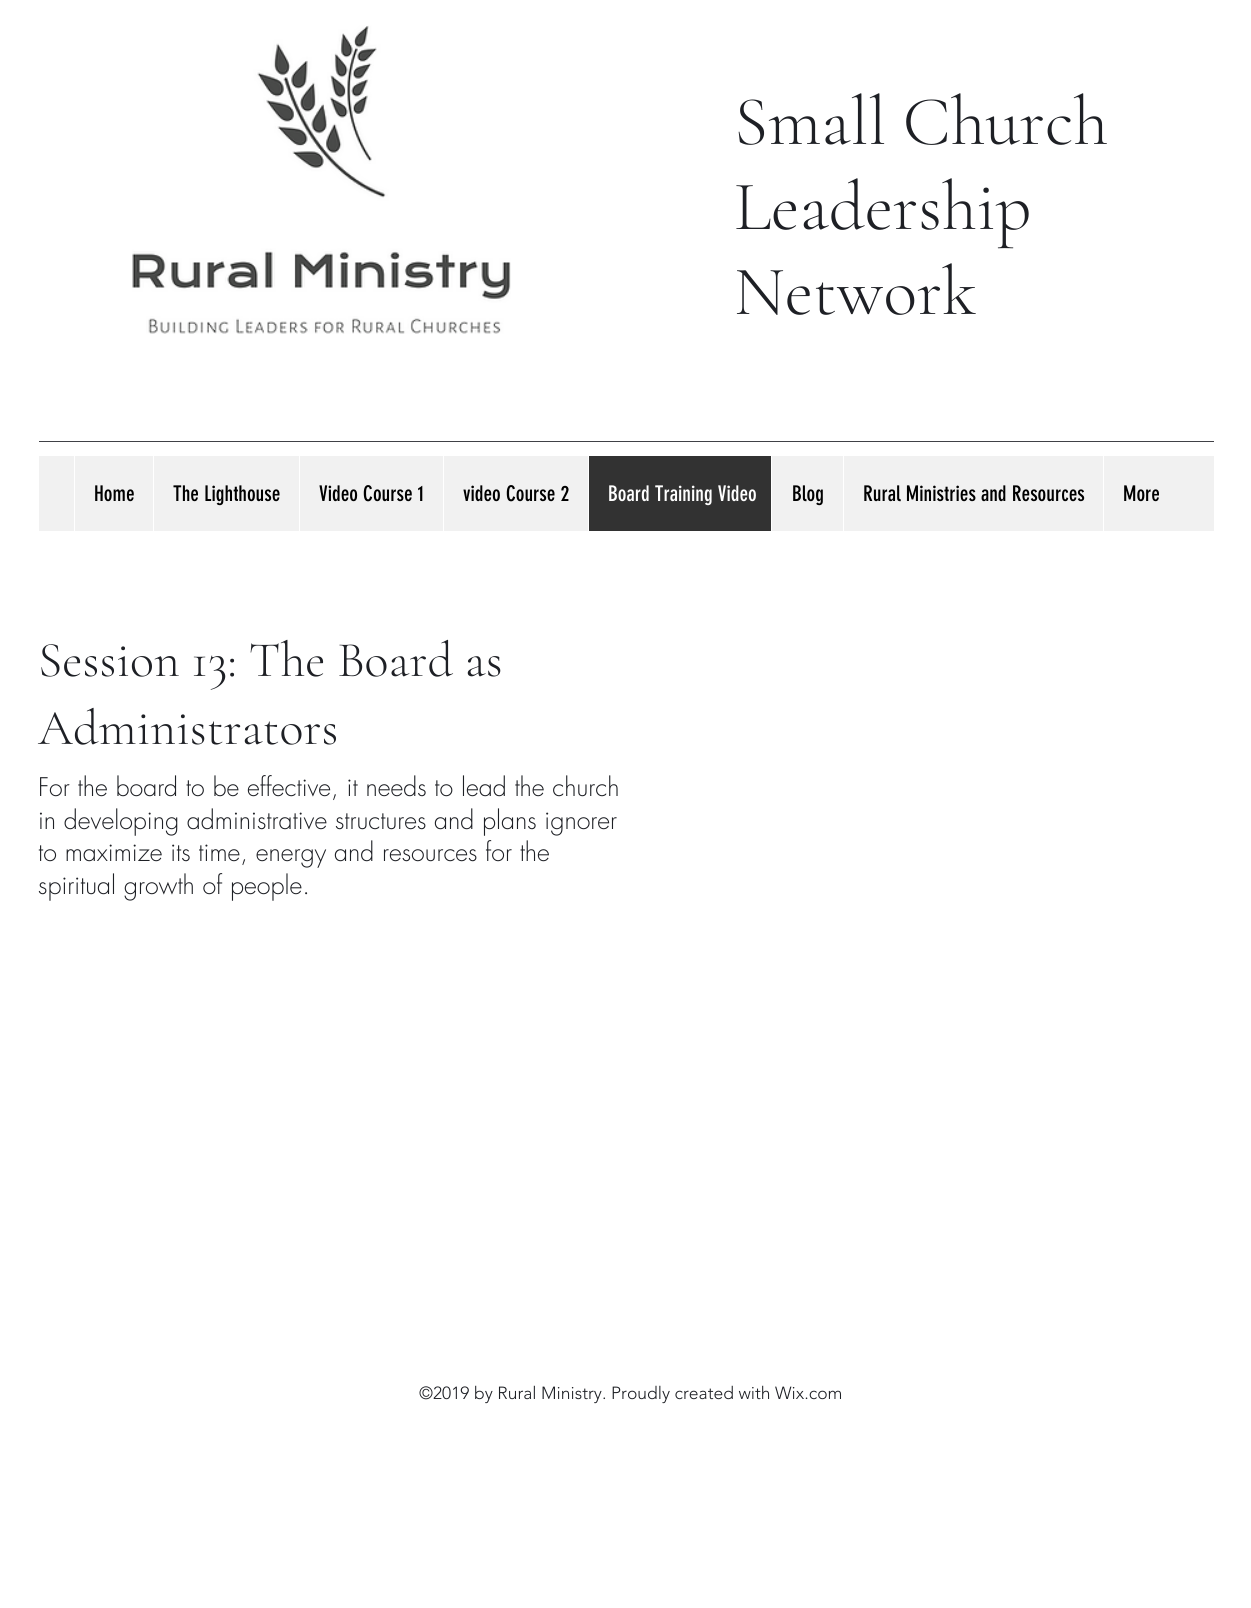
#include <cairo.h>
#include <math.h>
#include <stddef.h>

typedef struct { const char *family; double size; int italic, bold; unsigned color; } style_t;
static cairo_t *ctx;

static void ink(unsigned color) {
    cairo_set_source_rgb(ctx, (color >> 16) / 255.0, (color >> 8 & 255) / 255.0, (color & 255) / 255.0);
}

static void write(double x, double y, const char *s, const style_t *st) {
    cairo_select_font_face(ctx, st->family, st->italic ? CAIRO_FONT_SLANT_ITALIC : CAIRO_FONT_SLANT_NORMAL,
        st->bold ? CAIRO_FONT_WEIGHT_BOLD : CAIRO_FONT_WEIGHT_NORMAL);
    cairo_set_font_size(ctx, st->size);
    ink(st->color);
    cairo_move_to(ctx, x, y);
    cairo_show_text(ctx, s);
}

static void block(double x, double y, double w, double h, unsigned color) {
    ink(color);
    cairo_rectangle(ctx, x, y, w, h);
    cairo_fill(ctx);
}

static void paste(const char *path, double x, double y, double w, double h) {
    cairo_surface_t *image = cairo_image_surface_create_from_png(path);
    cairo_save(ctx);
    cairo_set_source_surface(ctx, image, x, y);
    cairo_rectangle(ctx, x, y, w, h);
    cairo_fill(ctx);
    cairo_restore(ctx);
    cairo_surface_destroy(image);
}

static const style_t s1 = {"Cormorant Garamond Light", 70, 0, 0, 0x1e2025};
static const style_t s2 = {"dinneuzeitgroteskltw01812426", 21.25, 0, 0, 0x000000};
static const style_t s3 = {"dinneuzeitgroteskltw01812426", 21.25, 0, 0, 0xffffff};
static const style_t s4 = {"Cormorant Garamond Light", 50, 0, 0, 0x1e2025};
static const style_t s5 = {"futura Light", 25, 0, 0, 0x1e2025};
static const style_t s6 = {"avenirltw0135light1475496 Light", 17.5, 0, 0, 0x1e2025};

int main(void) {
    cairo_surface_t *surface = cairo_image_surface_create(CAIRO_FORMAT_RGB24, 1251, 1608);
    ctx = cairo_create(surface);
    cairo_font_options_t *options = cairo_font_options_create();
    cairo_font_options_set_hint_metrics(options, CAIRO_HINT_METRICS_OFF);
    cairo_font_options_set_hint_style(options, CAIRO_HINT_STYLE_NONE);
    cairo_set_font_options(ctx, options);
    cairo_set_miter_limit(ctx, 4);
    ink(0xffffff);
    cairo_paint(ctx);
    paste("pic1.png", 132, 25, 379, 309);
    write(734, 144, "Small Church", &s1);
    write(734, 229, "Leadership", &s1);
    write(734, 314, "Network", &s1);
    block(39, 441, 1175, 1, 0x404146);
    block(39, 456, 1175, 75, 0xf1f1f1);
    block(74, 456, 1, 75, 0xffffff);
    write(94, 501, "Home", &s2);
    block(153, 456, 1, 75, 0xffffff);
    write(173, 501, "The Lighthouse", &s2);
    block(299, 456, 1, 75, 0xffffff);
    write(319, 501, "Video Course 1", &s2);
    block(443, 456, 1, 75, 0xffffff);
    write(463, 501, "video Course 2", &s2);
    block(589, 456, 182, 75, 0x323232);
    block(588, 456, 1, 75, 0xffffff);
    write(608, 501, "Board Training Video", &s3);
    block(771, 456, 1, 75, 0xffffff);
    write(792, 501, "Blog", &s2);
    block(843, 456, 1, 75, 0xffffff);
    write(863, 501, "Rural Ministries and Resources", &s2);
    block(1103, 456, 1, 75, 0xffffff);
    write(1123, 501, "More", &s2);
    write(38, 676, "Session 13: The Board as", &s4);
    write(38, 744, "Administrators", &s4);
    write(38, 796, "For the board to be effective, it needs to lead the church", &s5);
    write(38, 829, "in developing administrative structures and plans ignorer", &s5);
    write(38, 861, "to maximize its time, energy and resources for the", &s5);
    write(38, 894, "spiritual growth of people.", &s5);
    write(419, 1399, "©2019 by Rural Ministry. Proudly created with Wix.com", &s6);
    cairo_surface_write_to_png(surface, "screenshot.png");
    cairo_font_options_destroy(options);
    cairo_destroy(ctx);
    cairo_surface_destroy(surface);
    return 0;
}
